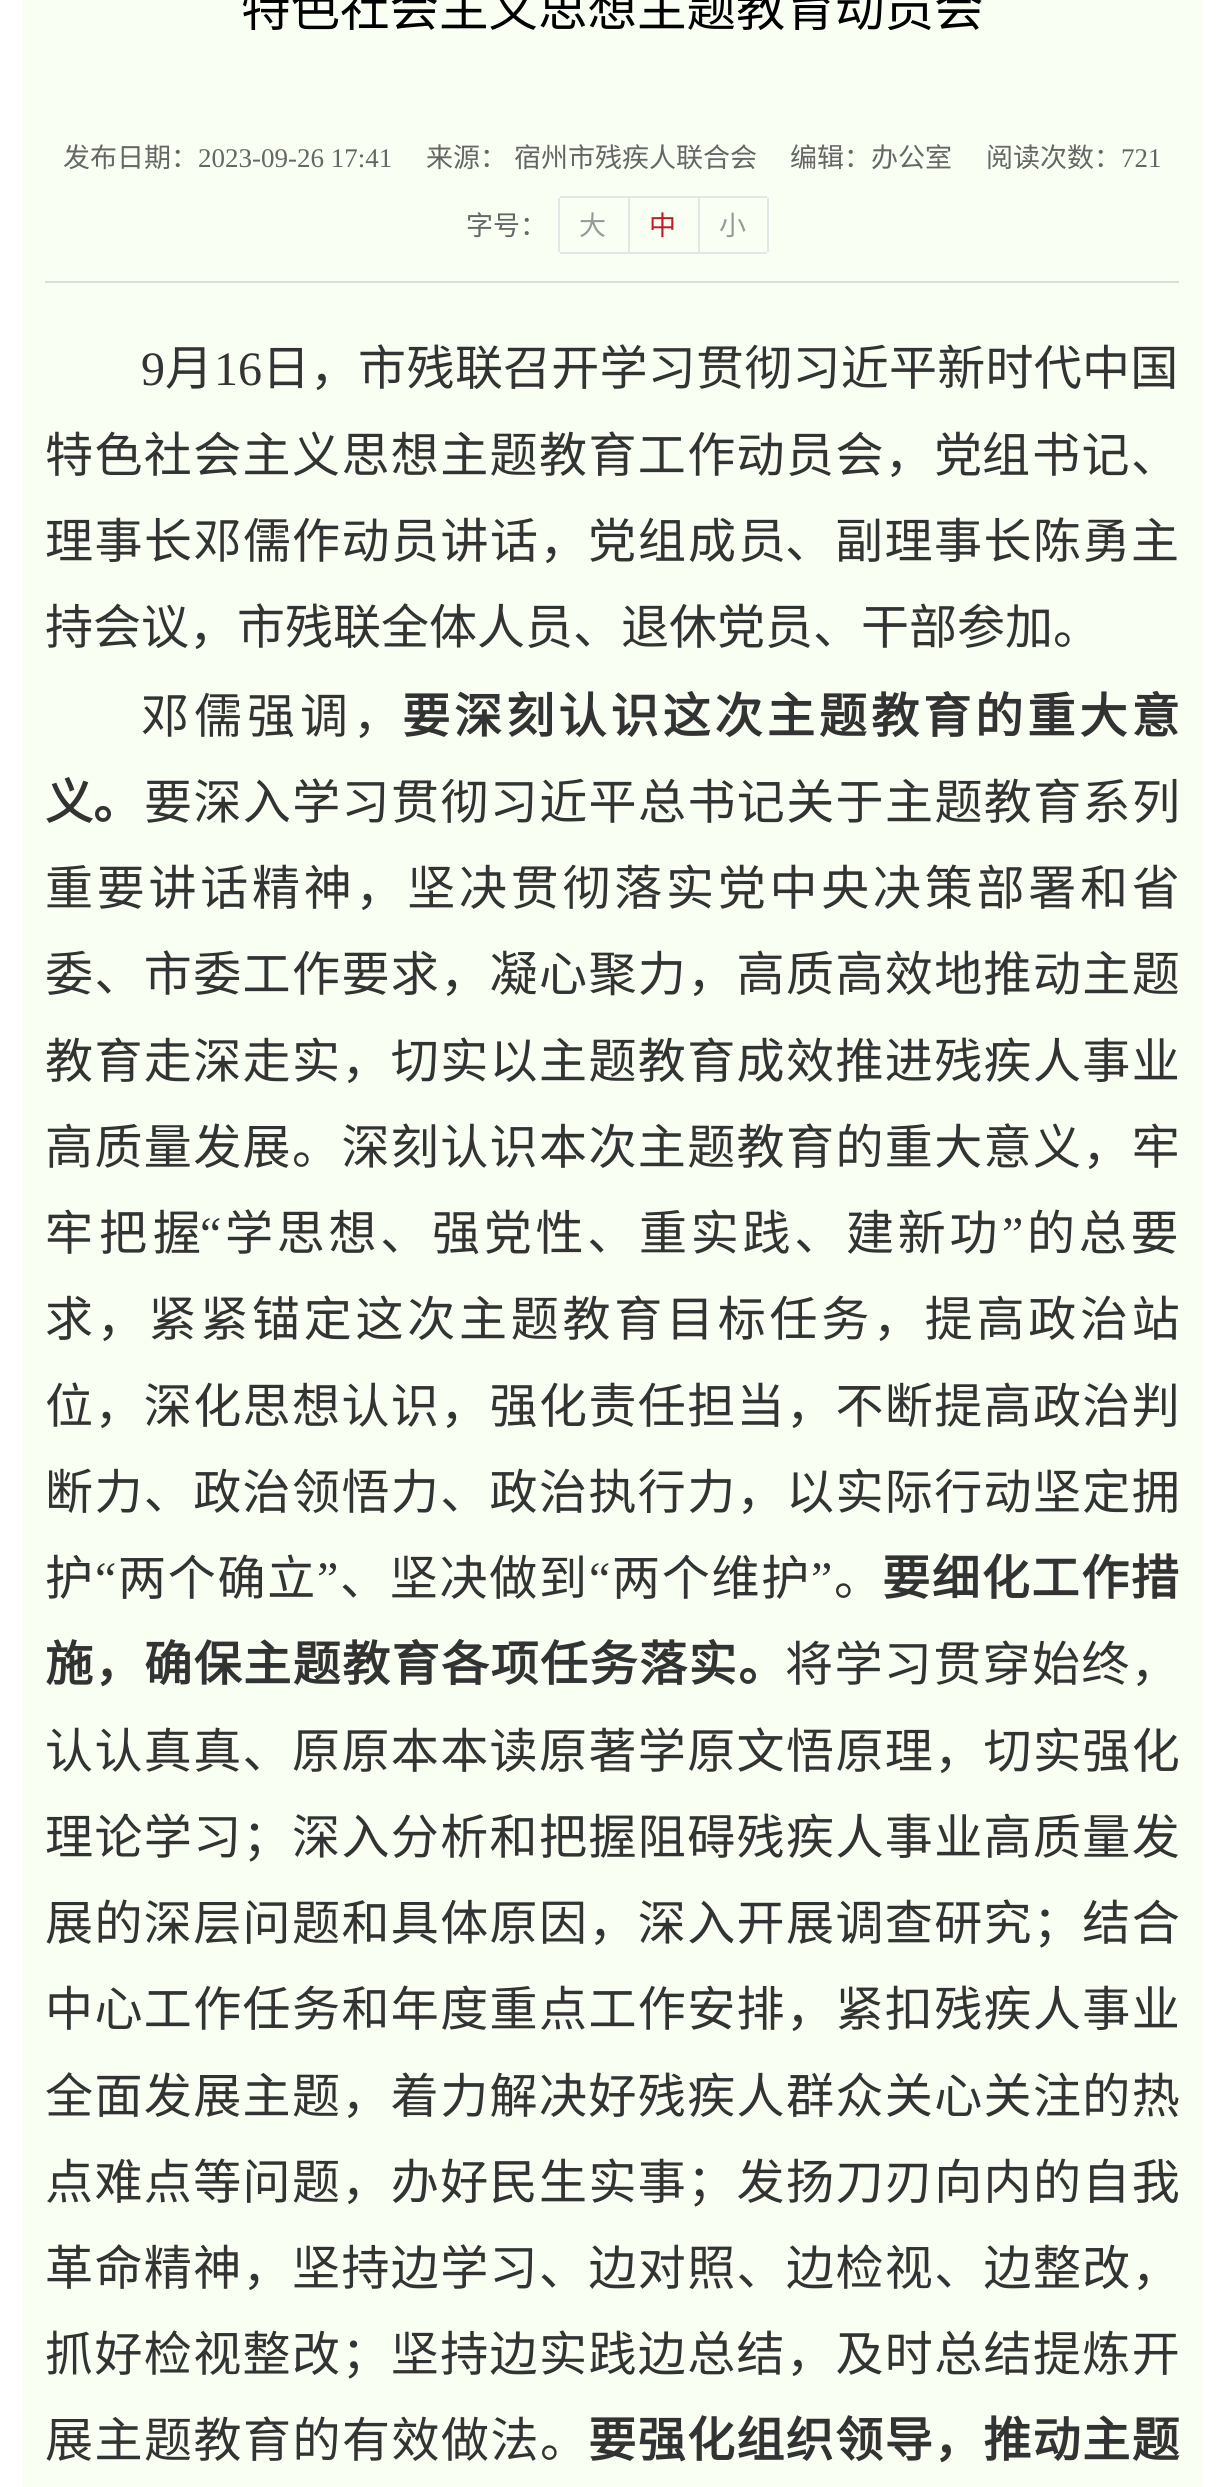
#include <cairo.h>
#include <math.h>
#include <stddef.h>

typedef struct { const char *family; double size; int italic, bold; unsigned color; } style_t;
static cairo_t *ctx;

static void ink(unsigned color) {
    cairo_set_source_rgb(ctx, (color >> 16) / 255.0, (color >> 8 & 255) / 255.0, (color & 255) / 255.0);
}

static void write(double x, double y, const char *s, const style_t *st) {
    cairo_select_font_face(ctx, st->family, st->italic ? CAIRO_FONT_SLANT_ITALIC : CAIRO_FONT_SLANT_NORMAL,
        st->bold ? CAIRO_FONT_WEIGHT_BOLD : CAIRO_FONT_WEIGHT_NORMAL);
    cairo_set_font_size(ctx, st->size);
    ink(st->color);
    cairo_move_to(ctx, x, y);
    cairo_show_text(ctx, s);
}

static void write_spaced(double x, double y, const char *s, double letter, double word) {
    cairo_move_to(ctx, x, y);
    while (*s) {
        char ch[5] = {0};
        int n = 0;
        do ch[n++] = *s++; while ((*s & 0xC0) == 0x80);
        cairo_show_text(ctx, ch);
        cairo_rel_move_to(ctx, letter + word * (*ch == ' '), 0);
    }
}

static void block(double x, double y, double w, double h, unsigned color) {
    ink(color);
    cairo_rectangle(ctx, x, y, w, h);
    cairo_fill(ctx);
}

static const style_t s1 = {"Noto Sans CJK SC", 49.5, 0, 0, 0x000000};
static const style_t s2 = {"Noto Sans CJK SC", 27, 0, 0, 0x666666};
static const style_t s3 = {"Liberation Serif", 27, 0, 0, 0x666666};
static const style_t s4 = {"Noto Sans CJK SC", 27, 0, 0, 0x999999};
static const style_t s5 = {"Noto Sans CJK SC", 27, 0, 0, 0xbd1a2d};
static const style_t s6 = {"Liberation Serif", 48, 0, 0, 0x333333};
static const style_t s7 = {"Noto Sans CJK SC", 48, 0, 0, 0x333333};
static const style_t s8 = {"Noto Sans CJK SC", 48, 0, 1, 0x333333};

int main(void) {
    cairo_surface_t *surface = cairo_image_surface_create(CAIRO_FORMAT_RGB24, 1223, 2487);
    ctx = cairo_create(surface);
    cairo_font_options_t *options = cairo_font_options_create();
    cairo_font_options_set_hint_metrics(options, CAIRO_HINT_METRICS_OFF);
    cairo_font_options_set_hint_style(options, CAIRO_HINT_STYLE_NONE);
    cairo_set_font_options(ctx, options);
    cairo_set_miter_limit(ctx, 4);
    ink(0xffffff);
    cairo_paint(ctx);
    block(23, 0, 1179, 2487, 0xfafff4);
    write(241, 26, "特色社会主义思想主题教育动员会", &s1);
    block(45, 281, 1134, 2, 0xdddddd);
    write(63, 167, "发布日期：", &s2);
    write(198, 167, "2023-09-26 17:41", &s3);
    cairo_select_font_face(ctx, "Noto Sans CJK SC", CAIRO_FONT_SLANT_NORMAL, CAIRO_FONT_WEIGHT_NORMAL);
    write_spaced(426, 167, "来源： 宿州市残疾人联合会", 0, 1);
    write(790, 167, "编辑：办公室", &s2);
    write(986, 167, "阅读次数：", &s2);
    write(1121, 167, "721", &s3);
    write(466, 235, "字号：", &s2);
    block(560, 196, 68, 2, 0xe6e6e6);
    block(560, 252, 68, 2, 0xe6e6e6);
    block(558, 198, 2, 54, 0xe6e6e6);
    write(579, 235, "大", &s4);
    cairo_rectangle(ctx, 629, 197, 70, 56);
    ink(0xe6e6e6);
    cairo_stroke(ctx);
    write(649, 235, "中", &s5);
    block(700, 196, 67, 2, 0xe6e6e6);
    block(767, 198, 2, 54, 0xe6e6e6);
    block(700, 252, 67, 2, 0xe6e6e6);
    write(719, 235, "小", &s4);
    write(141, 385, "9", &s6);
    write(165, 385, "月", &s7);
    write(214, 385, "16", &s6);
    write(262, 385, "日，", &s7);
    write_spaced(358, 385, "市残联", 0.5, 0);
    write_spaced(503, 385, "召开学习贯彻习近平新时代中国", 0.25, 0);
    write_spaced(45, 472, "特色社会主义思想主题教育工作动员会，", 1.4, 0);
    write(934, 472, "党组", &s7);
    write_spaced(1032, 472, "书记、", 1.5, 0);
    write_spaced(45, 558, "理事长邓儒", 1.5, 0);
    write_spaced(292, 558, "作动员讲话，", 1.5, 0);
    write_spaced(588, 558, "党组成员", 2, 0);
    write(785, 558, "、", &s7);
    write_spaced(835, 558, "副理事长陈勇", 1.5, 0);
    write(1131, 558, "主", &s7);
    write(45, 644, "持会议，市残联全体人员、退休党员、干部参加。", &s7);
    write_spaced(141, 733, "邓儒强调，", 5, 0);
    cairo_select_font_face(ctx, "Noto Sans CJK SC", CAIRO_FONT_SLANT_NORMAL, CAIRO_FONT_WEIGHT_BOLD);
    write_spaced(402, 733, "要深刻认识这次主题教育的重大意", 4.1, 0);
    write(45, 819, "义。", &s8);
    cairo_select_font_face(ctx, "Noto Sans CJK SC", CAIRO_FONT_SLANT_NORMAL, CAIRO_FONT_WEIGHT_NORMAL);
    write_spaced(144, 819, "要深入学习贯彻习近平总书记关于主题教育系列", 1.4, 0);
    write_spaced(45, 905, "重要讲话精神，坚决贯彻落实党中央决策部署和省", 3.75, 0);
    write_spaced(45, 991, "委、市委工作要求，凝心聚力，高质高效地推动主题", 1.4, 0);
    write_spaced(45, 1078, "教育走深走实，切实以主题教育成效推进残疾人事业", 1.4, 0);
    write_spaced(45, 1164, "高质量发展。深刻认识本次主题教育的重大意义，牢", 1.4, 0);
    write_spaced(45, 1250, "牢把握", 6, 0);
    cairo_select_font_face(ctx, "Liberation Serif", CAIRO_FONT_SLANT_NORMAL, CAIRO_FONT_WEIGHT_NORMAL);
    write_spaced(200, 1250, "“", 3.75, 0);
    cairo_select_font_face(ctx, "Noto Sans CJK SC", CAIRO_FONT_SLANT_NORMAL, CAIRO_FONT_WEIGHT_NORMAL);
    write_spaced(225, 1250, "学思想、强党性、重实践、建新功", 3.75, 0);
    cairo_select_font_face(ctx, "Liberation Serif", CAIRO_FONT_SLANT_NORMAL, CAIRO_FONT_WEIGHT_NORMAL);
    write_spaced(1002, 1250, "”", 3.75, 0);
    cairo_select_font_face(ctx, "Noto Sans CJK SC", CAIRO_FONT_SLANT_NORMAL, CAIRO_FONT_WEIGHT_NORMAL);
    write_spaced(1027, 1250, "的总要", 3.75, 0);
    write_spaced(45, 1336, "求，紧紧锚定这次主题教育目标任务，提高政治站", 3.75, 0);
    write_spaced(45, 1423, "位，深化思想认识，强化责任担当，不断提高政治判", 1.4, 0);
    write_spaced(45, 1509, "断力、政治领悟力、政治执行力，以实际行动坚定拥", 1.4, 0);
    write_spaced(45, 1595, "护", 1.75, 0);
    cairo_select_font_face(ctx, "Liberation Serif", CAIRO_FONT_SLANT_NORMAL, CAIRO_FONT_WEIGHT_NORMAL);
    write_spaced(95, 1595, "“", 1.75, 0);
    cairo_select_font_face(ctx, "Noto Sans CJK SC", CAIRO_FONT_SLANT_NORMAL, CAIRO_FONT_WEIGHT_NORMAL);
    write_spaced(118, 1595, "两个确立", 1.75, 0);
    cairo_select_font_face(ctx, "Liberation Serif", CAIRO_FONT_SLANT_NORMAL, CAIRO_FONT_WEIGHT_NORMAL);
    write_spaced(317, 1595, "”", 1.75, 0);
    cairo_select_font_face(ctx, "Noto Sans CJK SC", CAIRO_FONT_SLANT_NORMAL, CAIRO_FONT_WEIGHT_NORMAL);
    write_spaced(340, 1595, "、坚决做到", 1.75, 0);
    cairo_select_font_face(ctx, "Liberation Serif", CAIRO_FONT_SLANT_NORMAL, CAIRO_FONT_WEIGHT_NORMAL);
    write_spaced(589, 1595, "“", 1.75, 0);
    cairo_select_font_face(ctx, "Noto Sans CJK SC", CAIRO_FONT_SLANT_NORMAL, CAIRO_FONT_WEIGHT_NORMAL);
    write_spaced(612, 1595, "两个维护", 1.75, 0);
    cairo_select_font_face(ctx, "Liberation Serif", CAIRO_FONT_SLANT_NORMAL, CAIRO_FONT_WEIGHT_NORMAL);
    write_spaced(811, 1595, "”", 1.75, 0);
    cairo_select_font_face(ctx, "Noto Sans CJK SC", CAIRO_FONT_SLANT_NORMAL, CAIRO_FONT_WEIGHT_BOLD);
    write_spaced(882, 1595, "要细化工作措", 1.75, 0);
    cairo_select_font_face(ctx, "Noto Sans CJK SC", CAIRO_FONT_SLANT_NORMAL, CAIRO_FONT_WEIGHT_NORMAL);
    write_spaced(834, 1595, "。", 1.75, 0);
    cairo_select_font_face(ctx, "Noto Sans CJK SC", CAIRO_FONT_SLANT_NORMAL, CAIRO_FONT_WEIGHT_BOLD);
    write_spaced(45, 1681, "施，确保主题教育各项任务落实。", 1.5, 0);
    cairo_select_font_face(ctx, "Noto Sans CJK SC", CAIRO_FONT_SLANT_NORMAL, CAIRO_FONT_WEIGHT_NORMAL);
    write_spaced(785, 1681, "将学习贯穿始终，", 1.4, 0);
    write_spaced(45, 1768, "认认真真、原原本本读原著学原文悟原理，切实强化", 1.4, 0);
    write_spaced(45, 1854, "理论学习；深入分析和把握阻碍残疾人事业高质量发", 1.4, 0);
    write_spaced(45, 1940, "展的深层问题和具体原因，深入开展调查研究；结合", 1.4, 0);
    write_spaced(45, 2026, "中心工作任务和年度重点工作安排，紧扣残疾人事业", 1.4, 0);
    write_spaced(45, 2113, "全面发展主题，着力解决好残疾人群众关心关注的热", 1.4, 0);
    write_spaced(45, 2199, "点难点等问题，办好民生实事；发扬刀刃向内的自我", 1.4, 0);
    write_spaced(45, 2285, "革命精神，坚持边学习、边对照、边检视、边整改，", 1.4, 0);
    write_spaced(45, 2371, "抓好检视整改；坚持边实践边总结，及时总结提炼开", 1.4, 0);
    write_spaced(45, 2457, "展主题教育的有效做法。", 1.5, 0);
    cairo_select_font_face(ctx, "Noto Sans CJK SC", CAIRO_FONT_SLANT_NORMAL, CAIRO_FONT_WEIGHT_BOLD);
    write_spaced(588, 2457, "要强化组织领导，推动主题", 1.4, 0);
    cairo_surface_write_to_png(surface, "screenshot.png");
    cairo_font_options_destroy(options);
    cairo_destroy(ctx);
    cairo_surface_destroy(surface);
    return 0;
}
